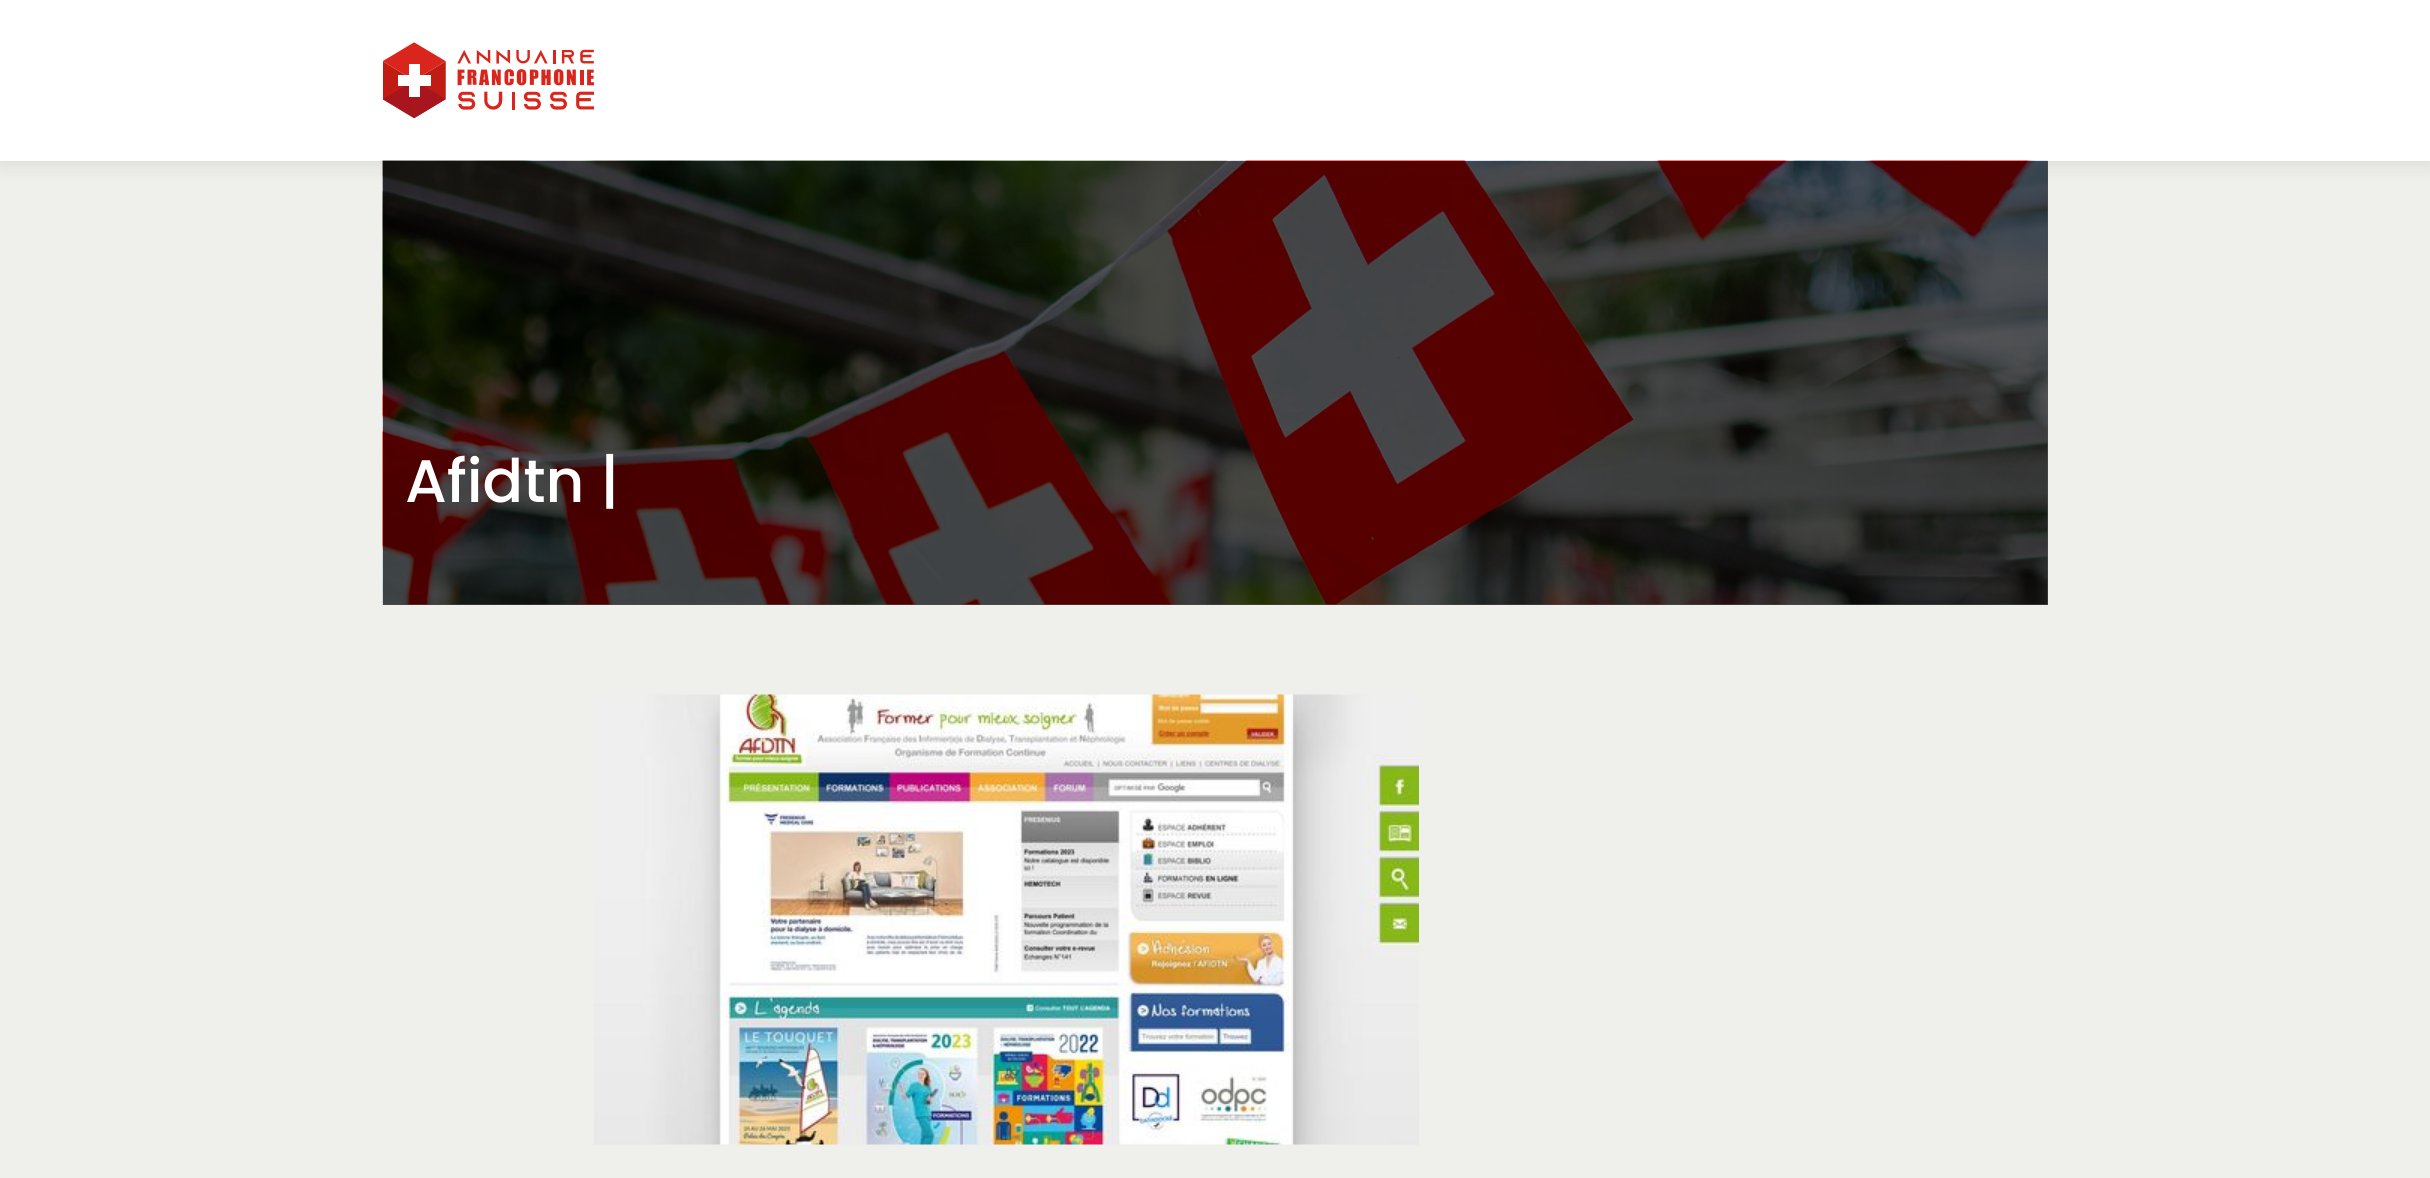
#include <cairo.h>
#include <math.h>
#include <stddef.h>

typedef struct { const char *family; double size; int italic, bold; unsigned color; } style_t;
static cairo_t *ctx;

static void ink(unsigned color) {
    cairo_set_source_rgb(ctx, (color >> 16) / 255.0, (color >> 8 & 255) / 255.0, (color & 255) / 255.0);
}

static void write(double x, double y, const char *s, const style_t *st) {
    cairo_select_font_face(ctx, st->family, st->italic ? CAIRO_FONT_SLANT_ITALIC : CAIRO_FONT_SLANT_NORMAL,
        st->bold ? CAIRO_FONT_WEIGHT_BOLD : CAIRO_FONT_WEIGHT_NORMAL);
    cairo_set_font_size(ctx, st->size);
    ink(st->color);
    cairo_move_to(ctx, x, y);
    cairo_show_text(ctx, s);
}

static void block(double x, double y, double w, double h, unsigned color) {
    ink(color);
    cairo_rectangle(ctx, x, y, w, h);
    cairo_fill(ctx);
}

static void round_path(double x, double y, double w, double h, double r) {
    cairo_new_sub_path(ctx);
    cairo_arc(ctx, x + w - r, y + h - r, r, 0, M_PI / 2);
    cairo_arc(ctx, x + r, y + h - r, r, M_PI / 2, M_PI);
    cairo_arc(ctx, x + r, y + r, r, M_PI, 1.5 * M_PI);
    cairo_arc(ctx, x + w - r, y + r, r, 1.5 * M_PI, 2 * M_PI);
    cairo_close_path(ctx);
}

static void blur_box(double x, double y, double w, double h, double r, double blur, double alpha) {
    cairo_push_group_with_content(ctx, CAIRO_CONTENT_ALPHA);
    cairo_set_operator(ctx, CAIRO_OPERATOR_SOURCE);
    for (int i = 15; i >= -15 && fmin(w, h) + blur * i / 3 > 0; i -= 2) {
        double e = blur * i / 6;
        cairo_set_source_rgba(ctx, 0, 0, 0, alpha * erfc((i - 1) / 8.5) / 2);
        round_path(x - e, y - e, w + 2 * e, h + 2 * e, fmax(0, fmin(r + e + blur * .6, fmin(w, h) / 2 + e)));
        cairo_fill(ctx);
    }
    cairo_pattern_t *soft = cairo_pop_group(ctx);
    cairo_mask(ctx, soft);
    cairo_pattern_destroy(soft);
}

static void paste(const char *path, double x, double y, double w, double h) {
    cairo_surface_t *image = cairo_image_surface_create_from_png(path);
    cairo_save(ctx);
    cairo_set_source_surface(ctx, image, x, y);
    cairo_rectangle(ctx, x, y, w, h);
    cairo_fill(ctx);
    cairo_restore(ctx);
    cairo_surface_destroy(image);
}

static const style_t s1 = {"Poppins Medium", 60, 0, 0, 0xffffff};

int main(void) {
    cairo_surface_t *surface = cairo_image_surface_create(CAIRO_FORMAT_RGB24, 2430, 1178);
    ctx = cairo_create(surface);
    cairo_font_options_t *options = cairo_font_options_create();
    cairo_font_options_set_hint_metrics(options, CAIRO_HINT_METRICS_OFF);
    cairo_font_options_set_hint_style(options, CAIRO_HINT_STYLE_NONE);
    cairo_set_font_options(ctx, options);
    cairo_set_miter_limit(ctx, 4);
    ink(0xefefeb);
    cairo_paint(ctx);
    ink(0x000000);
    blur_box(0, 3, 2430, 161, 0, 10, 0.1);
    block(0, 0, 2430, 161, 0xffffff);
    paste("pic1.png", 383, 42, 211, 77);
    block(383, 161, 1665, 444, 0xeeeeee);
    paste("pic2.png", 382, 160, 1666, 445);
    cairo_set_source_rgba(ctx, 0, 0, 0, 0.66);
    cairo_rectangle(ctx, 383, 161, 1665, 444);
    cairo_fill(ctx);
    write(405, 502, "Afidtn |", &s1);
    paste("pic3.png", 594, 694, 825, 451);
    cairo_surface_write_to_png(surface, "screenshot.png");
    cairo_font_options_destroy(options);
    cairo_destroy(ctx);
    cairo_surface_destroy(surface);
    return 0;
}
